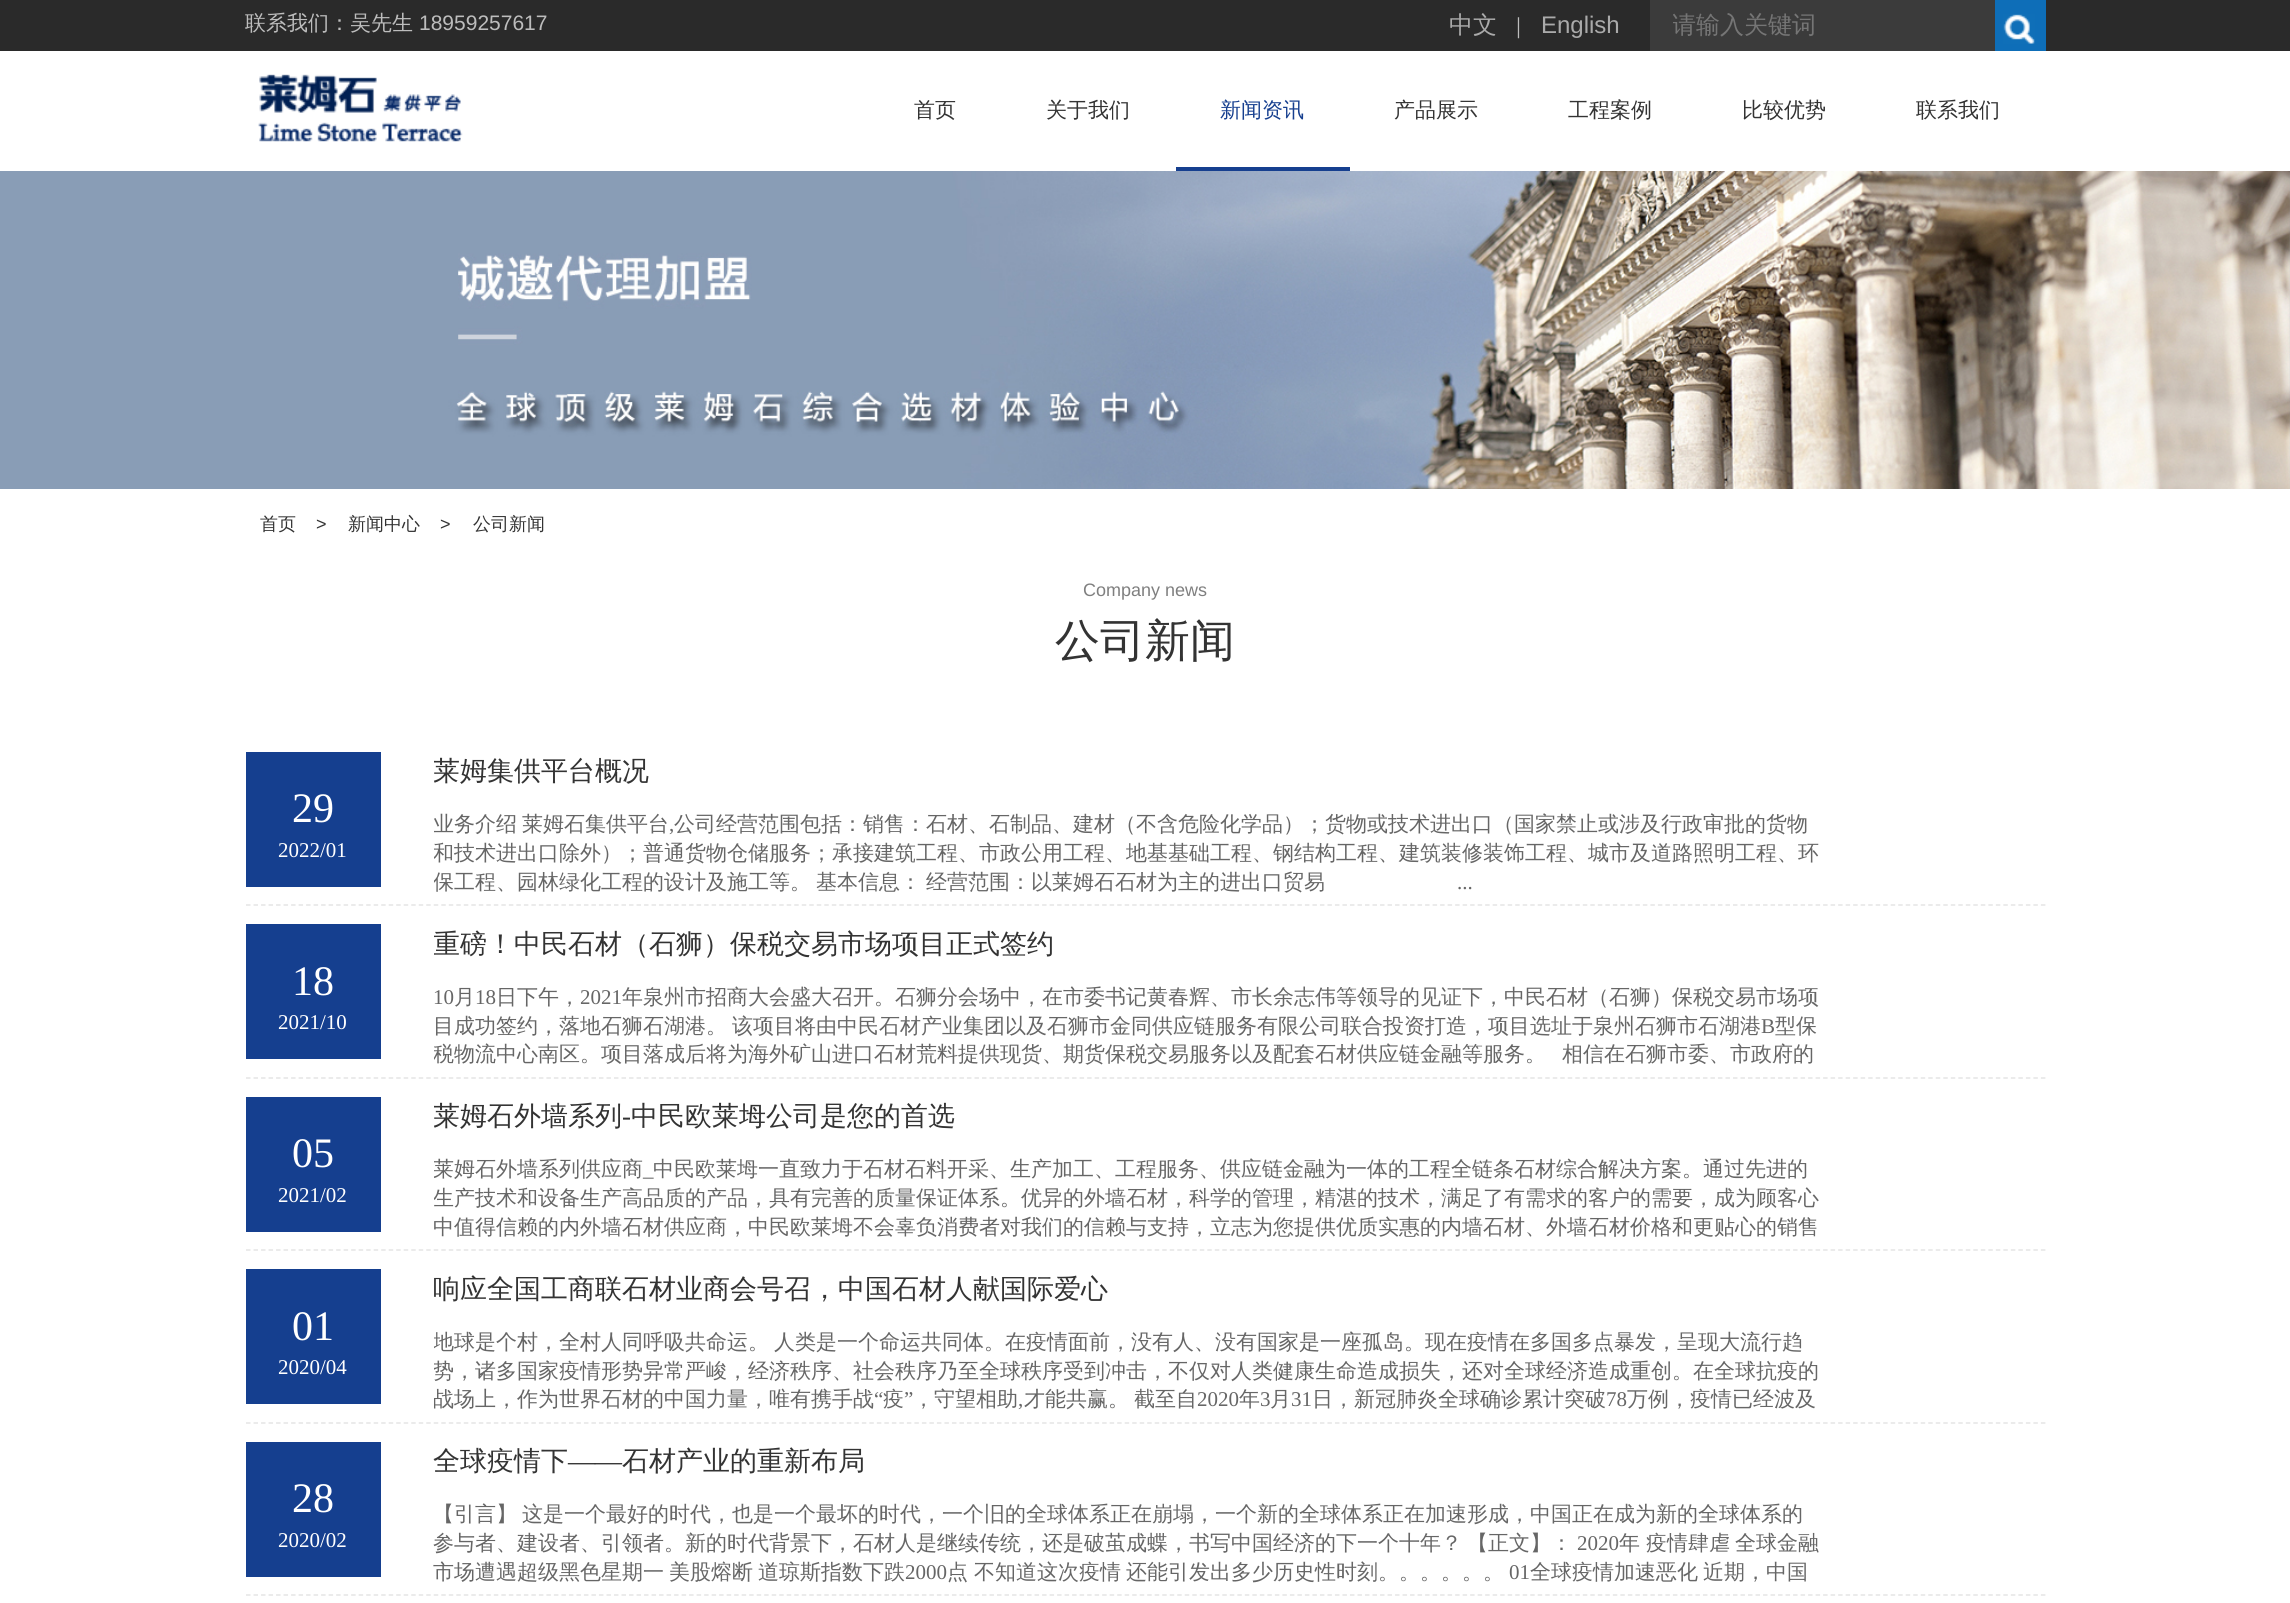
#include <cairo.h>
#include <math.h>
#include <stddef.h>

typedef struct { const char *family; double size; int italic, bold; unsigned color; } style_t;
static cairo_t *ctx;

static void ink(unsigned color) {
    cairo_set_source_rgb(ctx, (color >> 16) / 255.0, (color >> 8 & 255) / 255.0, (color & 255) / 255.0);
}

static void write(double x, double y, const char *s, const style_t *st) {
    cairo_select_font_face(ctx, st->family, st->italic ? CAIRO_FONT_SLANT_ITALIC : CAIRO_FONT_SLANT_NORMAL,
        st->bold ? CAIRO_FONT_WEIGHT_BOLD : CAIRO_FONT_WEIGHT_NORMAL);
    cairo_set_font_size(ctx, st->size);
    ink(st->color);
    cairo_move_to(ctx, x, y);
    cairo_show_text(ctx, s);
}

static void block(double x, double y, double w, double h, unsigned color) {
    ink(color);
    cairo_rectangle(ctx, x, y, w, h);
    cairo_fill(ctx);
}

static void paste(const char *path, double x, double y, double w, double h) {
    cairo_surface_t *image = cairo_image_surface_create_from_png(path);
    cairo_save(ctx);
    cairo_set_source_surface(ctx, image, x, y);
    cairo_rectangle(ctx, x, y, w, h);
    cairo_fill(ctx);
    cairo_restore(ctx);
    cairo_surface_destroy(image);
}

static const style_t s1 = {"WenQuanYi Zen Hei Medium", 21, 0, 0, 0xbdbdbd};
static const style_t s2 = {"Liberation Sans", 21, 0, 0, 0xbdbdbd};
static const style_t s3 = {"WenQuanYi Zen Hei Medium", 24, 0, 0, 0xaaaaaa};
static const style_t s4 = {"Liberation Sans", 24, 0, 0, 0xaaaaaa};
static const style_t s5 = {"WenQuanYi Zen Hei Medium", 24, 0, 0, 0x757575};
static const style_t s6 = {"WenQuanYi Zen Hei Medium", 21, 0, 0, 0x333333};
static const style_t s7 = {"WenQuanYi Zen Hei Medium", 21, 0, 0, 0x163f8f};
static const style_t s8 = {"WenQuanYi Zen Hei Medium", 18, 0, 0, 0x333333};
static const style_t s9 = {"Liberation Sans", 18, 0, 0, 0x333333};
static const style_t s10 = {"Liberation Sans", 18, 0, 0, 0x7f7f7f};
static const style_t s11 = {"WenQuanYi Zen Hei Medium", 45, 0, 0, 0x333333};
static const style_t s12 = {"Liberation Serif", 42, 0, 0, 0xffffff};
static const style_t s13 = {"Liberation Serif", 21, 0, 0, 0xffffff};
static const style_t s14 = {"WenQuanYi Zen Hei Medium", 27, 0, 0, 0x333333};
static const style_t s15 = {"WenQuanYi Zen Hei Medium", 21, 0, 0, 0x666666};
static const style_t s16 = {"Liberation Serif", 21, 0, 0, 0x666666};
static const style_t s17 = {"Liberation Serif", 27, 0, 0, 0x333333};

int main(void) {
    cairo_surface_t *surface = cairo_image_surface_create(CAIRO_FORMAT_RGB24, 2290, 1603);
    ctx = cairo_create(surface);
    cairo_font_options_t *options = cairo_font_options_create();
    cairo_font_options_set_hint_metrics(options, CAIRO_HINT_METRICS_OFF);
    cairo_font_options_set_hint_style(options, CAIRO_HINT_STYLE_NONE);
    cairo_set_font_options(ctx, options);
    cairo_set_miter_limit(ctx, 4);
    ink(0xffffff);
    cairo_paint(ctx);
    block(0, 0, 2290, 51, 0x2a2a2a);
    write(245, 30, "联系我们：吴先生", &s1);
    write(419, 30, "18959257617", &s2);
    write(1449, 33, "中文", &s3);
    write(1508, 33, "｜", &s1);
    write(1541, 33, "English", &s4);
    block(1650, 0, 345, 51, 0x3b3b3b);
    cairo_save(ctx);
    cairo_rectangle(ctx, 1673, 11, 315, 31);
    cairo_clip(ctx);
    write(1672, 33, "请输入关键词", &s5);
    cairo_restore(ctx);
    block(1995, 0, 51, 51, 0x0e6eb8);
    paste("pic1.png", 2003, 14, 32, 30);
    paste("pic2.png", 258, 74, 205, 68);
    write(914, 117, "首页", &s6);
    write(1046, 117, "关于我们", &s6);
    write(1220, 117, "新闻资讯", &s7);
    block(1176, 167, 174, 4, 0x163f8f);
    write(1394, 117, "产品展示", &s6);
    write(1568, 117, "工程案例", &s6);
    write(1742, 117, "比较优势", &s6);
    write(1916, 117, "联系我们", &s6);
    paste("pic3.png", 0, 171, 2290, 318);
    write(260, 530, "首页", &s8);
    write(316, 530, ">", &s9);
    write(348, 530, "新闻中心", &s8);
    write(440, 530, ">", &s9);
    write(473, 530, "公司新闻", &s8);
    write(1083, 596, "Company news", &s10);
    write(1055, 656, "公司新闻", &s11);
    cairo_new_path(ctx);
    cairo_move_to(ctx, 246, 905);
    cairo_line_to(ctx, 2046, 905);
    ink(0xe5e5e5);
    cairo_set_line_width(ctx, 1.5);
    cairo_set_dash(ctx, (double[]){4.5, 3.01}, 2, 0);
    cairo_stroke(ctx);
    block(246, 752, 135, 135, 0x153f8f);
    write(292, 822, "29", &s12);
    write(278, 857, "2022/01", &s13);
    cairo_save(ctx);
    cairo_rectangle(ctx, 434, 752, 1387, 40);
    cairo_clip(ctx);
    write(433, 780, "莱姆集供平台概况", &s14);
    cairo_restore(ctx);
    cairo_save(ctx);
    cairo_rectangle(ctx, 434, 810, 1387, 87);
    cairo_clip(ctx);
    write(433, 831, "业务介绍", &s15);
    cairo_restore(ctx);
    write(522, 831, "莱姆石集供平台", &s15);
    write(669, 831, ",", &s16);
    write(674, 831, "公司经营范围包括：销售：石材、石制品、建材（不含危险化学品）；货物或技术进出口（国家禁止或涉及行政审批的货物", &s15);
    cairo_save(ctx);
    cairo_rectangle(ctx, 434, 810, 1387, 87);
    cairo_clip(ctx);
    write(433, 860, "和技术进出口除外）；普通货物仓储服务；承接建筑工程、市政公用工程、地基基础工程、钢结构工程、建筑装修装饰工程、城市及道路照明工程、环", &s15);
    write(433, 889, "保工程、园林绿化工程的设计及施工等。", &s15);
    cairo_restore(ctx);
    write(816, 889, "基本信息：", &s15);
    write(926, 889, "经营范围：以莱姆石石材为主的进出口贸易", &s15);
    write(1457, 889, "...", &s16);
    cairo_new_path(ctx);
    cairo_move_to(ctx, 246, 1078);
    cairo_line_to(ctx, 2046, 1078);
    ink(0xe5e5e5);
    cairo_stroke(ctx);
    block(246, 924, 135, 135, 0x153f8f);
    write(292, 995, "18", &s12);
    write(278, 1029, "2021/10", &s13);
    cairo_save(ctx);
    cairo_rectangle(ctx, 434, 924, 1387, 41);
    cairo_clip(ctx);
    write(433, 953, "重磅！中民石材（石狮）保税交易市场项目正式签约", &s14);
    cairo_restore(ctx);
    write(433, 1004, "10", &s16);
    write(454, 1004, "月", &s15);
    write(475, 1004, "18", &s16);
    write(496, 1004, "日下午，", &s15);
    write(580, 1004, "2021", &s16);
    write(622, 1004, "年泉州市招商大会盛大召开。石狮分会场中，在市委书记黄春辉、市长余志伟等领导的见证下，中民石材（石狮）保税交易市场项", &s15);
    write(433, 1033, "目成功签约，落地石狮石湖港。", &s15);
    write(732, 1033, "该项目将由中民石材产业集团以及石狮市金同供应链服务有限公司联合投资打造，项目选址于泉州石狮市石湖港", &s15);
    write(1761, 1033, "B", &s16);
    write(1775, 1033, "型保", &s15);
    cairo_save(ctx);
    cairo_rectangle(ctx, 434, 983, 1387, 94);
    cairo_clip(ctx);
    write(433, 1061, "税物流中心南区。项目落成后将为海外矿山进口石材荒料提供现货、期货保税交易服务以及配套石材供应链金融等服务。", &s15);
    cairo_restore(ctx);
    write(1562, 1061, "相信在石狮市委、市政府的", &s15);
    cairo_new_path(ctx);
    cairo_move_to(ctx, 246, 1250);
    cairo_line_to(ctx, 2046, 1250);
    ink(0xe5e5e5);
    cairo_stroke(ctx);
    block(246, 1097, 135, 135, 0x153f8f);
    write(292, 1167, "05", &s12);
    write(278, 1202, "2021/02", &s13);
    cairo_save(ctx);
    cairo_rectangle(ctx, 434, 1097, 1387, 40);
    cairo_clip(ctx);
    write(433, 1125, "莱姆石外墙系列", &s14);
    cairo_restore(ctx);
    write(622, 1125, "-", &s17);
    write(631, 1125, "中民欧莱坶公司是您的首选", &s14);
    cairo_save(ctx);
    cairo_rectangle(ctx, 434, 1155, 1387, 95);
    cairo_clip(ctx);
    write(433, 1176, "莱姆石外墙系列供应商", &s15);
    cairo_restore(ctx);
    write(643, 1176, "_", &s16);
    write(653, 1176, "中民欧莱坶一直致力于石材石料开采、生产加工、工程服务、供应链金融为一体的工程全链条石材综合解决方案。通过先进的", &s15);
    cairo_save(ctx);
    cairo_rectangle(ctx, 434, 1155, 1387, 95);
    cairo_clip(ctx);
    write(433, 1205, "生产技术和设备生产高品质的产品，具有完善的质量保证体系。优异的外墙石材，科学的管理，精湛的技术，满足了有需求的客户的需要，成为顾客心", &s15);
    write(433, 1234, "中值得信赖的内外墙石材供应商，中民欧莱坶不会辜负消费者对我们的信赖与支持，立志为您提供优质实惠的内墙石材、外墙石材价格和更贴心的销售", &s15);
    cairo_restore(ctx);
    cairo_new_path(ctx);
    cairo_move_to(ctx, 246, 1423);
    cairo_line_to(ctx, 2046, 1423);
    ink(0xe5e5e5);
    cairo_stroke(ctx);
    block(246, 1269, 135, 135, 0x153f8f);
    write(292, 1340, "01", &s12);
    write(278, 1374, "2020/04", &s13);
    cairo_save(ctx);
    cairo_rectangle(ctx, 434, 1269, 1387, 41);
    cairo_clip(ctx);
    write(433, 1298, "响应全国工商联石材业商会号召，中国石材人献国际爱心", &s14);
    cairo_restore(ctx);
    cairo_save(ctx);
    cairo_rectangle(ctx, 434, 1328, 1387, 94);
    cairo_clip(ctx);
    write(433, 1349, "地球是个村，全村人同呼吸共命运。", &s15);
    cairo_restore(ctx);
    write(774, 1349, "人类是一个命运共同体。在疫情面前，没有人、没有国家是一座孤岛。现在疫情在多国多点暴发，呈现大流行趋", &s15);
    cairo_save(ctx);
    cairo_rectangle(ctx, 434, 1328, 1387, 94);
    cairo_clip(ctx);
    write(433, 1378, "势，诸多国家疫情形势异常严峻，经济秩序、社会秩序乃至全球秩序受到冲击，不仅对人类健康生命造成损失，还对全球经济造成重创。在全球抗疫的", &s15);
    write(433, 1406, "战场上，作为世界石材的中国力量，唯有携手战", &s15);
    cairo_restore(ctx);
    write(874, 1406, "“", &s16);
    write(883, 1406, "疫", &s15);
    write(904, 1406, "”", &s16);
    write(913, 1406, "，守望相助", &s15);
    write(1018, 1406, ",", &s16);
    write(1024, 1406, "才能共赢。", &s15);
    write(1134, 1406, "截至自", &s15);
    write(1197, 1406, "2020", &s16);
    write(1239, 1406, "年", &s15);
    write(1260, 1406, "3", &s16);
    write(1270, 1406, "月", &s15);
    write(1291, 1406, "31", &s16);
    write(1312, 1406, "日，新冠肺炎全球确诊累计突破", &s15);
    write(1606, 1406, "78", &s16);
    write(1627, 1406, "万例，疫情已经波及", &s15);
    cairo_new_path(ctx);
    cairo_move_to(ctx, 246, 1595);
    cairo_line_to(ctx, 2046, 1595);
    ink(0xe5e5e5);
    cairo_stroke(ctx);
    block(246, 1442, 135, 135, 0x153f8f);
    write(292, 1512, "28", &s12);
    write(278, 1547, "2020/02", &s13);
    write(433, 1470, "全球疫情下", &s14);
    write(568, 1470, "——", &s17);
    write(622, 1470, "石材产业的重新布局", &s14);
    write(433, 1521, "【引言】", &s15);
    write(522, 1521, "这是一个最好的时代，也是一个最坏的时代，一个旧的全球体系正在崩塌，一个新的全球体系正在加速形成，中国正在成为新的全球体系的", &s15);
    write(433, 1550, "参与者、建设者、引领者。新的时代背景下，石材人是继续传统，还是破茧成蝶，书写中国经济的下一个十年？", &s15);
    write(1467, 1550, "【正文】：", &s15);
    write(1577, 1550, "2020", &s16);
    write(1619, 1550, "年", &s15);
    write(1646, 1550, "疫情肆虐", &s15);
    write(1735, 1550, "全球金融", &s15);
    write(433, 1579, "市场遭遇超级黑色星期一", &s15);
    write(669, 1579, "美股熔断", &s15);
    write(758, 1579, "道琼斯指数下跌", &s15);
    write(905, 1579, "2000", &s16);
    write(947, 1579, "点", &s15);
    write(974, 1579, "不知道这次疫情", &s15);
    write(1126, 1579, "还能引发出多少历史性时刻。。。。。。", &s15);
    write(1509, 1579, "01", &s16);
    write(1530, 1579, "全球疫情加速恶化", &s15);
    write(1703, 1579, "近期，中国", &s15);
    cairo_surface_write_to_png(surface, "screenshot.png");
    cairo_font_options_destroy(options);
    cairo_destroy(ctx);
    cairo_surface_destroy(surface);
    return 0;
}
